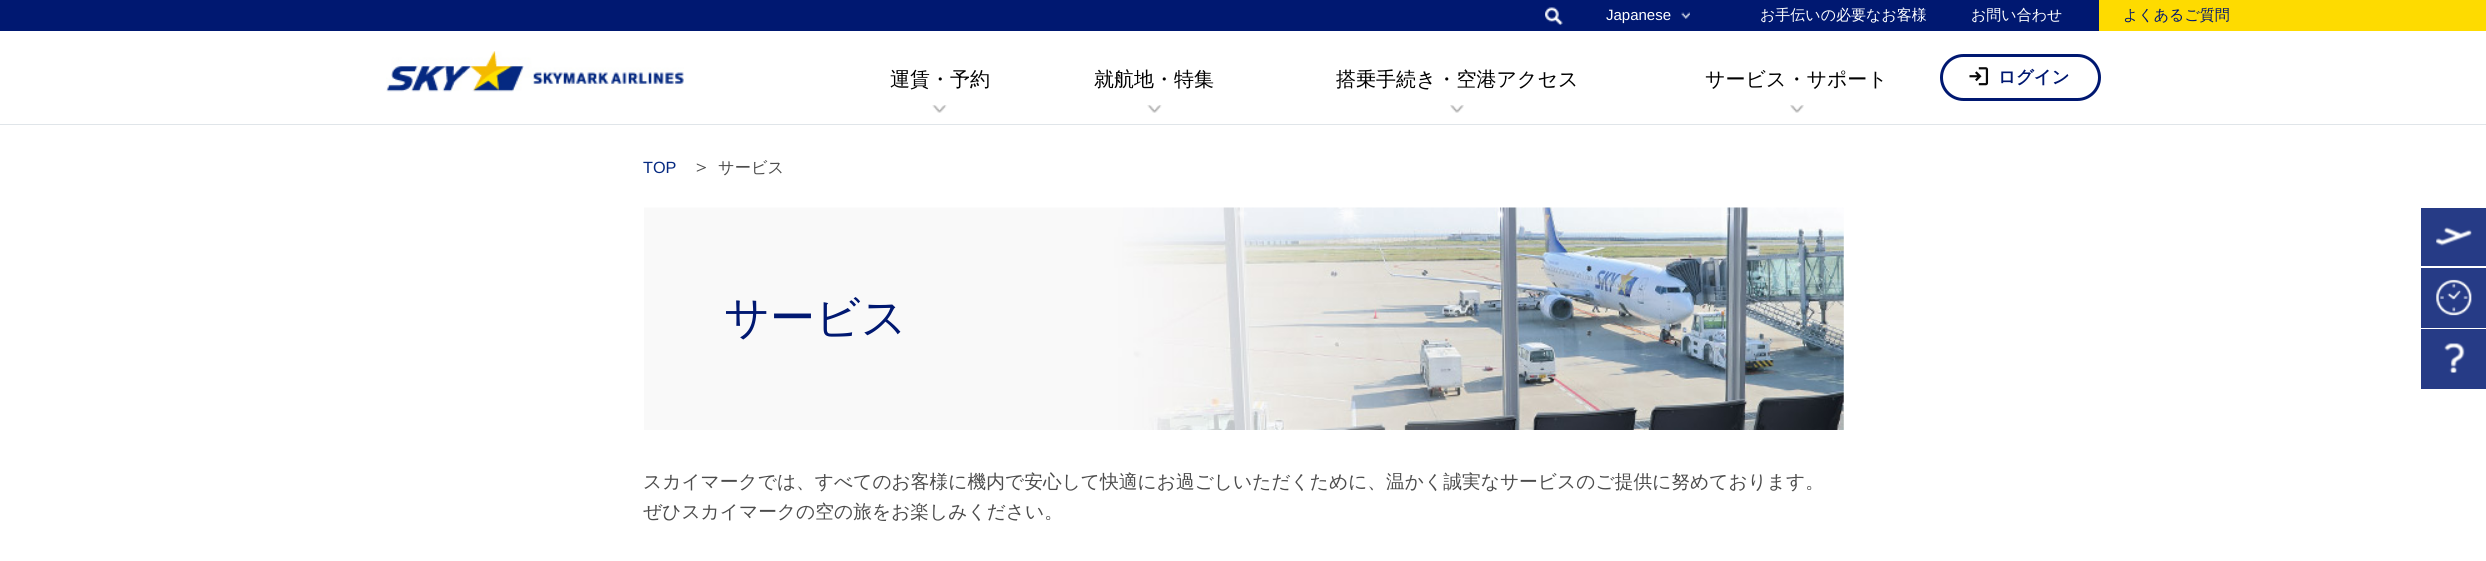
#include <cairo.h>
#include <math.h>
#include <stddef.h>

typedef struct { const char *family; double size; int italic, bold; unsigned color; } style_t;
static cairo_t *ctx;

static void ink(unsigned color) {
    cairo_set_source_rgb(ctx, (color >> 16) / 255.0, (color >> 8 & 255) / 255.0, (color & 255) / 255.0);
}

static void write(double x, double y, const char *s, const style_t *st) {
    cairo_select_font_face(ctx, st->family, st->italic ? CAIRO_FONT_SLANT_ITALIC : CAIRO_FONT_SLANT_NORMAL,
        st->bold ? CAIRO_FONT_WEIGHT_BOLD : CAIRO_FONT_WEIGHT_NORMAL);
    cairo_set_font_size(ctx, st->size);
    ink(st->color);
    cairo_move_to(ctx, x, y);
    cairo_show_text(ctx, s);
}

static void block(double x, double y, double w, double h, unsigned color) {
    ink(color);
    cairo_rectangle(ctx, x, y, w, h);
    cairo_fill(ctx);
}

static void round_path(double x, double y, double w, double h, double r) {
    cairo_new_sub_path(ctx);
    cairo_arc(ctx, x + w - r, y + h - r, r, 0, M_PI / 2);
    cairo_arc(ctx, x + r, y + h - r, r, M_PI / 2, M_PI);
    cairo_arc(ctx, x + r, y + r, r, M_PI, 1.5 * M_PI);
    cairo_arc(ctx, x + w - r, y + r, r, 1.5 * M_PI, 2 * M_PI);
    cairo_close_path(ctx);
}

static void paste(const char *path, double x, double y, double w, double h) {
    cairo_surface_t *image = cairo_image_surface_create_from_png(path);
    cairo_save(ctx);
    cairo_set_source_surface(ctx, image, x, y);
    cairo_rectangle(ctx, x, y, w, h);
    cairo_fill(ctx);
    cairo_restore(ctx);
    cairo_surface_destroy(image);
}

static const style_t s1 = {"Liberation Sans", 15, 0, 0, 0xffffff};
static const style_t s2 = {"WenQuanYi Zen Hei Medium", 15, 0, 0, 0xffffff};
static const style_t s3 = {"WenQuanYi Zen Hei Medium", 15, 0, 0, 0x001871};
static const style_t s4 = {"WenQuanYi Zen Hei Medium", 20, 0, 0, 0x000000};
static const style_t s5 = {"WenQuanYi Zen Hei", 17.5, 0, 1, 0x001871};
static const style_t s6 = {"Liberation Sans", 16.25, 0, 0, 0x052981};
static const style_t s7 = {"WenQuanYi Zen Hei Medium", 18.75, 0, 0, 0x4c4c4c};
static const style_t s8 = {"WenQuanYi Zen Hei Medium", 16.25, 0, 0, 0x4c4c4c};
static const style_t s9 = {"WenQuanYi Zen Hei Medium", 45, 0, 0, 0x001871};

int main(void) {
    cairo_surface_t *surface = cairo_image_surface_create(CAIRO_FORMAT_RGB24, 2486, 561);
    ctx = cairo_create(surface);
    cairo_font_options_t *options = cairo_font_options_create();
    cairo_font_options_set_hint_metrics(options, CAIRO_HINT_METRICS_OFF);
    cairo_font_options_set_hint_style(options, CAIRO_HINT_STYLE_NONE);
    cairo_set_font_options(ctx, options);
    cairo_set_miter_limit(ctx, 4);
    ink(0xffffff);
    cairo_paint(ctx);
    block(0, 0, 2099, 31, 0x001871);
    paste("pic1.png", 1545, 7, 18, 18);
    paste("pic2.png", 1681, 12, 9, 7);
    write(1606, 20, "Japanese", &s1);
    write(1760, 20, "お手伝いの必要なお客様", &s2);
    write(1971, 20, "お問い合わせ", &s2);
    block(2099, 0, 387, 31, 0xfedb00);
    write(2123, 20, "よくあるご質問", &s3);
    block(0, 124, 2486, 1, 0xe0e5e9);
    paste("pic3.png", 386, 51, 298, 41);
    paste("pic4.png", 932, 105, 15, 8);
    write(890, 86, "運賃・予約", &s4);
    paste("pic4.png", 1147, 105, 15, 8);
    write(1094, 86, "就航地・特集", &s4);
    paste("pic5.png", 1450, 105, 14, 8);
    write(1336, 86, "搭乗手続き・空港アクセス", &s4);
    paste("pic5.png", 1790, 105, 14, 8);
    write(1705, 86, "サービス・サポート", &s4);
    round_path(1941.5, 55.5, 158, 44, 22);
    ink(0x001871);
    cairo_set_line_width(ctx, 3);
    cairo_stroke(ctx);
    paste("pic6.png", 1969, 67, 20, 19);
    write(1998, 83, "ログイン", &s5);
    write(643, 173, "TOP", &s6);
    write(692, 173, "＞", &s7);
    write(718, 173, "サービス", &s8);
    paste("pic7.png", 644, 207, 1200, 223);
    write(724, 333, "サービス", &s9);
    write(643, 488, "スカイマークでは、すべてのお客様に機内で安心して快適にお過ごしいただくために、温かく誠実なサービスのご提供に努めております。", &s7);
    write(643, 518, "ぜひスカイマークの空の旅をお楽しみください。", &s7);
    block(2421, 208, 65, 58, 0x263b86);
    paste("pic8.png", 2436, 227, 36, 19);
    block(2421, 268, 65, 60, 0x263b86);
    paste("pic9.png", 2436, 279, 36, 37);
    block(2421, 329, 65, 60, 0x263b86);
    paste("pic10.png", 2444, 343, 21, 30);
    cairo_surface_write_to_png(surface, "screenshot.png");
    cairo_font_options_destroy(options);
    cairo_destroy(ctx);
    cairo_surface_destroy(surface);
    return 0;
}
